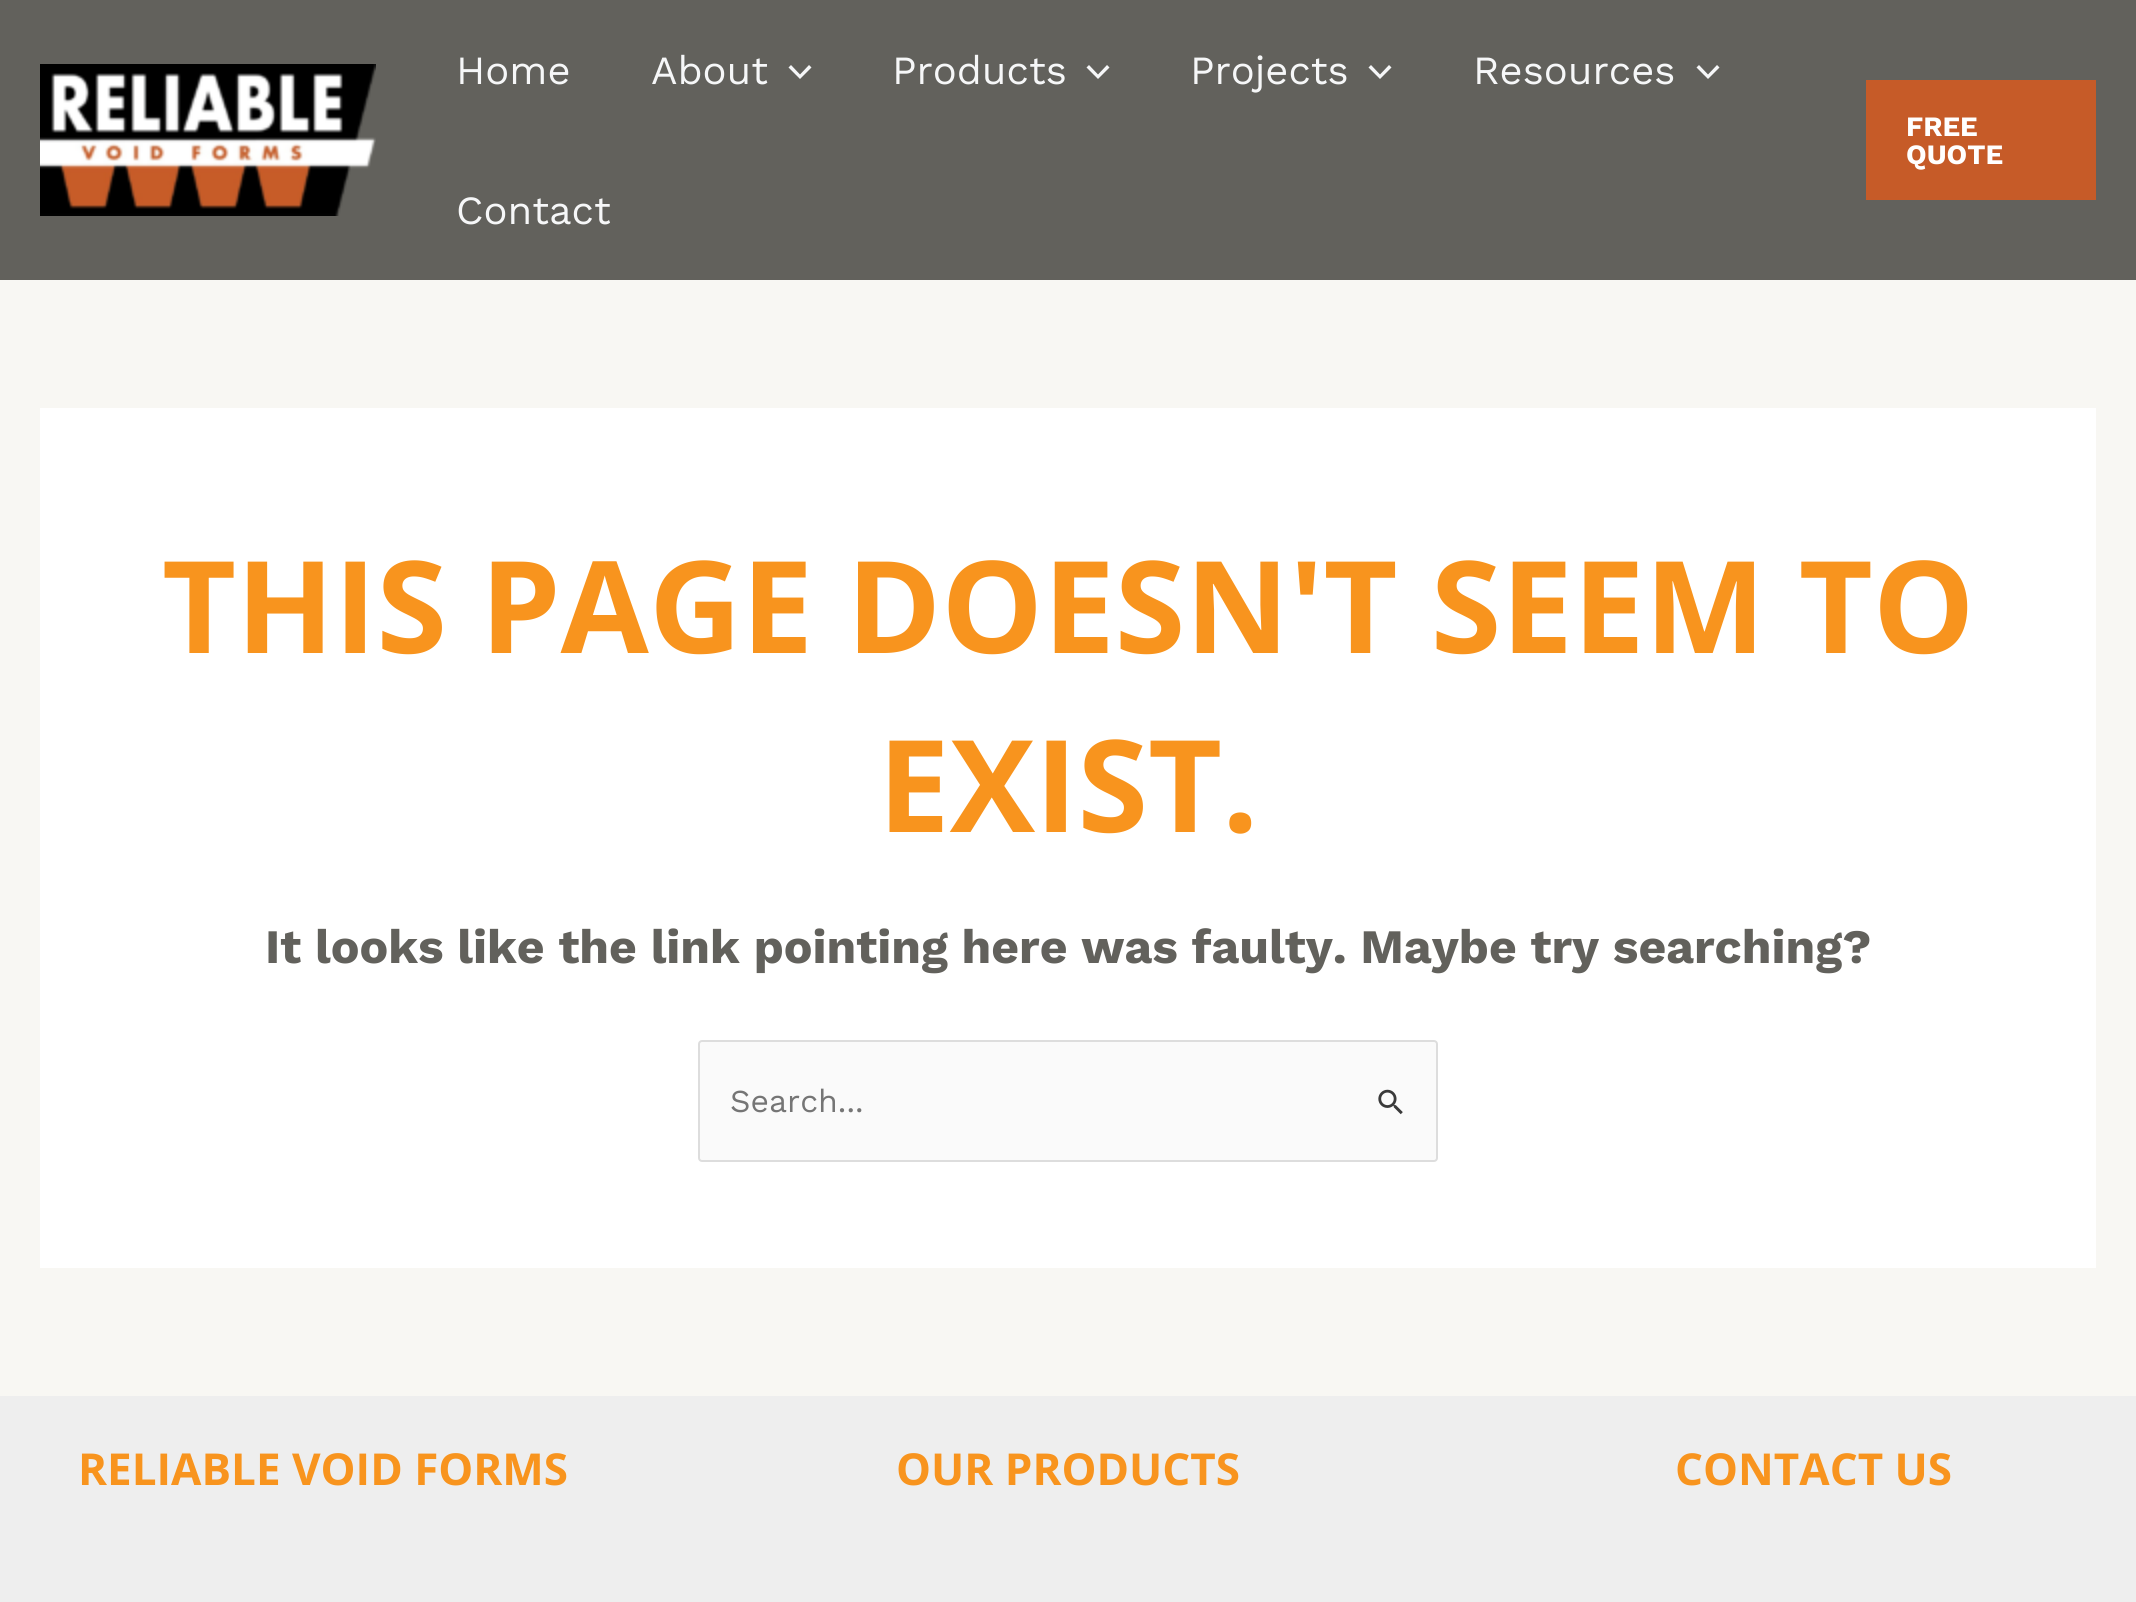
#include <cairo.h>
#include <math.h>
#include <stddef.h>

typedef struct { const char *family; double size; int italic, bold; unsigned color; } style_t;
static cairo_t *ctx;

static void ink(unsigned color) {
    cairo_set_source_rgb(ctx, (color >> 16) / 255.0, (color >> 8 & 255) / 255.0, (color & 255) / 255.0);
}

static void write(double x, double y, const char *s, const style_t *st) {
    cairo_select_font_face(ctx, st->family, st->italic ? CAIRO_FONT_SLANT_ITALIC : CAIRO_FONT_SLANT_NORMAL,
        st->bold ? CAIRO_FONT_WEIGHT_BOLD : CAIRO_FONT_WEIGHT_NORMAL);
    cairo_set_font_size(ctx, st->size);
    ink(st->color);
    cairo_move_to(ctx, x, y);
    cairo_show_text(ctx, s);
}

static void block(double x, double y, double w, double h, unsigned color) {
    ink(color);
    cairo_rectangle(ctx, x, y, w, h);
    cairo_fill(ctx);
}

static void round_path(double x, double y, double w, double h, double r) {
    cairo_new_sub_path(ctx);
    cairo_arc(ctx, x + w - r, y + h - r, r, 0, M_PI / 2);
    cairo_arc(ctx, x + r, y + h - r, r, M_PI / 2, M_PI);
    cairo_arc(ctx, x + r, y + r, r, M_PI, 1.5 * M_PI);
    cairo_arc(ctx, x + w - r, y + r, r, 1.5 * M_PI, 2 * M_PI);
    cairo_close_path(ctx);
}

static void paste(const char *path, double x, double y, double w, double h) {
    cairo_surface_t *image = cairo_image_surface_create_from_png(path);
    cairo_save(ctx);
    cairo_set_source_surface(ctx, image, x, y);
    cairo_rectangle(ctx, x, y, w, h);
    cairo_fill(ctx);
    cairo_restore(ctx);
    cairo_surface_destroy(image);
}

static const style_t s1 = {"Work Sans", 40, 0, 0, 0xf6f7f8};
static const style_t s2 = {"Work Sans", 28, 0, 1, 0xffffff};
static const style_t s3 = {"Open Sans", 128, 0, 1, 0xf8941e};
static const style_t s4 = {"Work Sans", 48, 0, 1, 0x62615c};
static const style_t s5 = {"Work Sans", 32, 0, 0, 0x757575};
static const style_t s6 = {"Open Sans", 44, 0, 1, 0xf8941e};

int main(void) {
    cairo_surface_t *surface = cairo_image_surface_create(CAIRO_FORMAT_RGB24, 2136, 1602);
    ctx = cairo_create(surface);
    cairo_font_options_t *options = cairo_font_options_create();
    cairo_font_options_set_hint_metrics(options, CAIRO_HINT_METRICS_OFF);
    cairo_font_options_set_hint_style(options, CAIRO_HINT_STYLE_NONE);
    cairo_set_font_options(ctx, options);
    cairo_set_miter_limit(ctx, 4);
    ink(0xf8f7f3);
    cairo_paint(ctx);
    block(0, 0, 2136, 280, 0x62615c);
    paste("pic1.png", 40, 64, 336, 152);
    write(456, 84, "Home", &s1);
    write(651, 84, "About", &s1);
    cairo_new_path(ctx);
    cairo_move_to(ctx, 788.5, 67.5);
    cairo_line_to(ctx, 800, 79);
    cairo_line_to(ctx, 811.5, 67.5);
    cairo_line_to(ctx, 809, 65);
    cairo_line_to(ctx, 800, 74.5);
    cairo_line_to(ctx, 791, 65);
    cairo_close_path(ctx);
    cairo_fill(ctx);
    write(892, 84, "Products", &s1);
    cairo_new_path(ctx);
    cairo_move_to(ctx, 1086.5, 67.5);
    cairo_line_to(ctx, 1098, 79);
    cairo_line_to(ctx, 1109.5, 67.5);
    cairo_line_to(ctx, 1107, 65);
    cairo_line_to(ctx, 1098, 74.5);
    cairo_line_to(ctx, 1089, 65);
    cairo_close_path(ctx);
    cairo_fill(ctx);
    write(1190, 84, "Projects", &s1);
    cairo_new_path(ctx);
    cairo_move_to(ctx, 1368.5, 67.5);
    cairo_line_to(ctx, 1380, 79);
    cairo_line_to(ctx, 1391.5, 67.5);
    cairo_line_to(ctx, 1389, 65);
    cairo_line_to(ctx, 1380, 74.5);
    cairo_line_to(ctx, 1371, 65);
    cairo_close_path(ctx);
    cairo_fill(ctx);
    write(1473, 84, "Resources", &s1);
    cairo_new_path(ctx);
    cairo_move_to(ctx, 1696.5, 67.5);
    cairo_line_to(ctx, 1708, 79);
    cairo_line_to(ctx, 1719.5, 67.5);
    cairo_line_to(ctx, 1717, 65);
    cairo_line_to(ctx, 1708, 74.5);
    cairo_line_to(ctx, 1699, 65);
    cairo_close_path(ctx);
    cairo_fill(ctx);
    write(456, 224, "Contact", &s1);
    block(1866, 80, 230, 120, 0xc65b28);
    write(1906, 136, "FREE", &s2);
    write(1906, 164, "QUOTE", &s2);
    block(40, 408, 2056, 860, 0xffffff);
    write(162, 653, "THIS PAGE DOESN'T SEEM TO", &s3);
    write(878, 832, "EXIST.", &s3);
    write(265, 963, "It looks like the link pointing here was faulty. Maybe try searching?", &s4);
    ink(0xfafafa);
    round_path(699, 1041, 738, 120, 3);
    cairo_fill_preserve(ctx);
    ink(0xdddddd);
    cairo_stroke(ctx);
    write(730, 1112, "Search...", &s5);
    paste("pic2.png", 1378, 1089, 25, 26);
    block(0, 1396, 2136, 206, 0xeeeeee);
    write(78, 1485, "RELIABLE VOID FORMS", &s6);
    write(896, 1485, "OUR PRODUCTS", &s6);
    write(1675, 1485, "CONTACT US", &s6);
    cairo_surface_write_to_png(surface, "screenshot.png");
    cairo_font_options_destroy(options);
    cairo_destroy(ctx);
    cairo_surface_destroy(surface);
    return 0;
}
